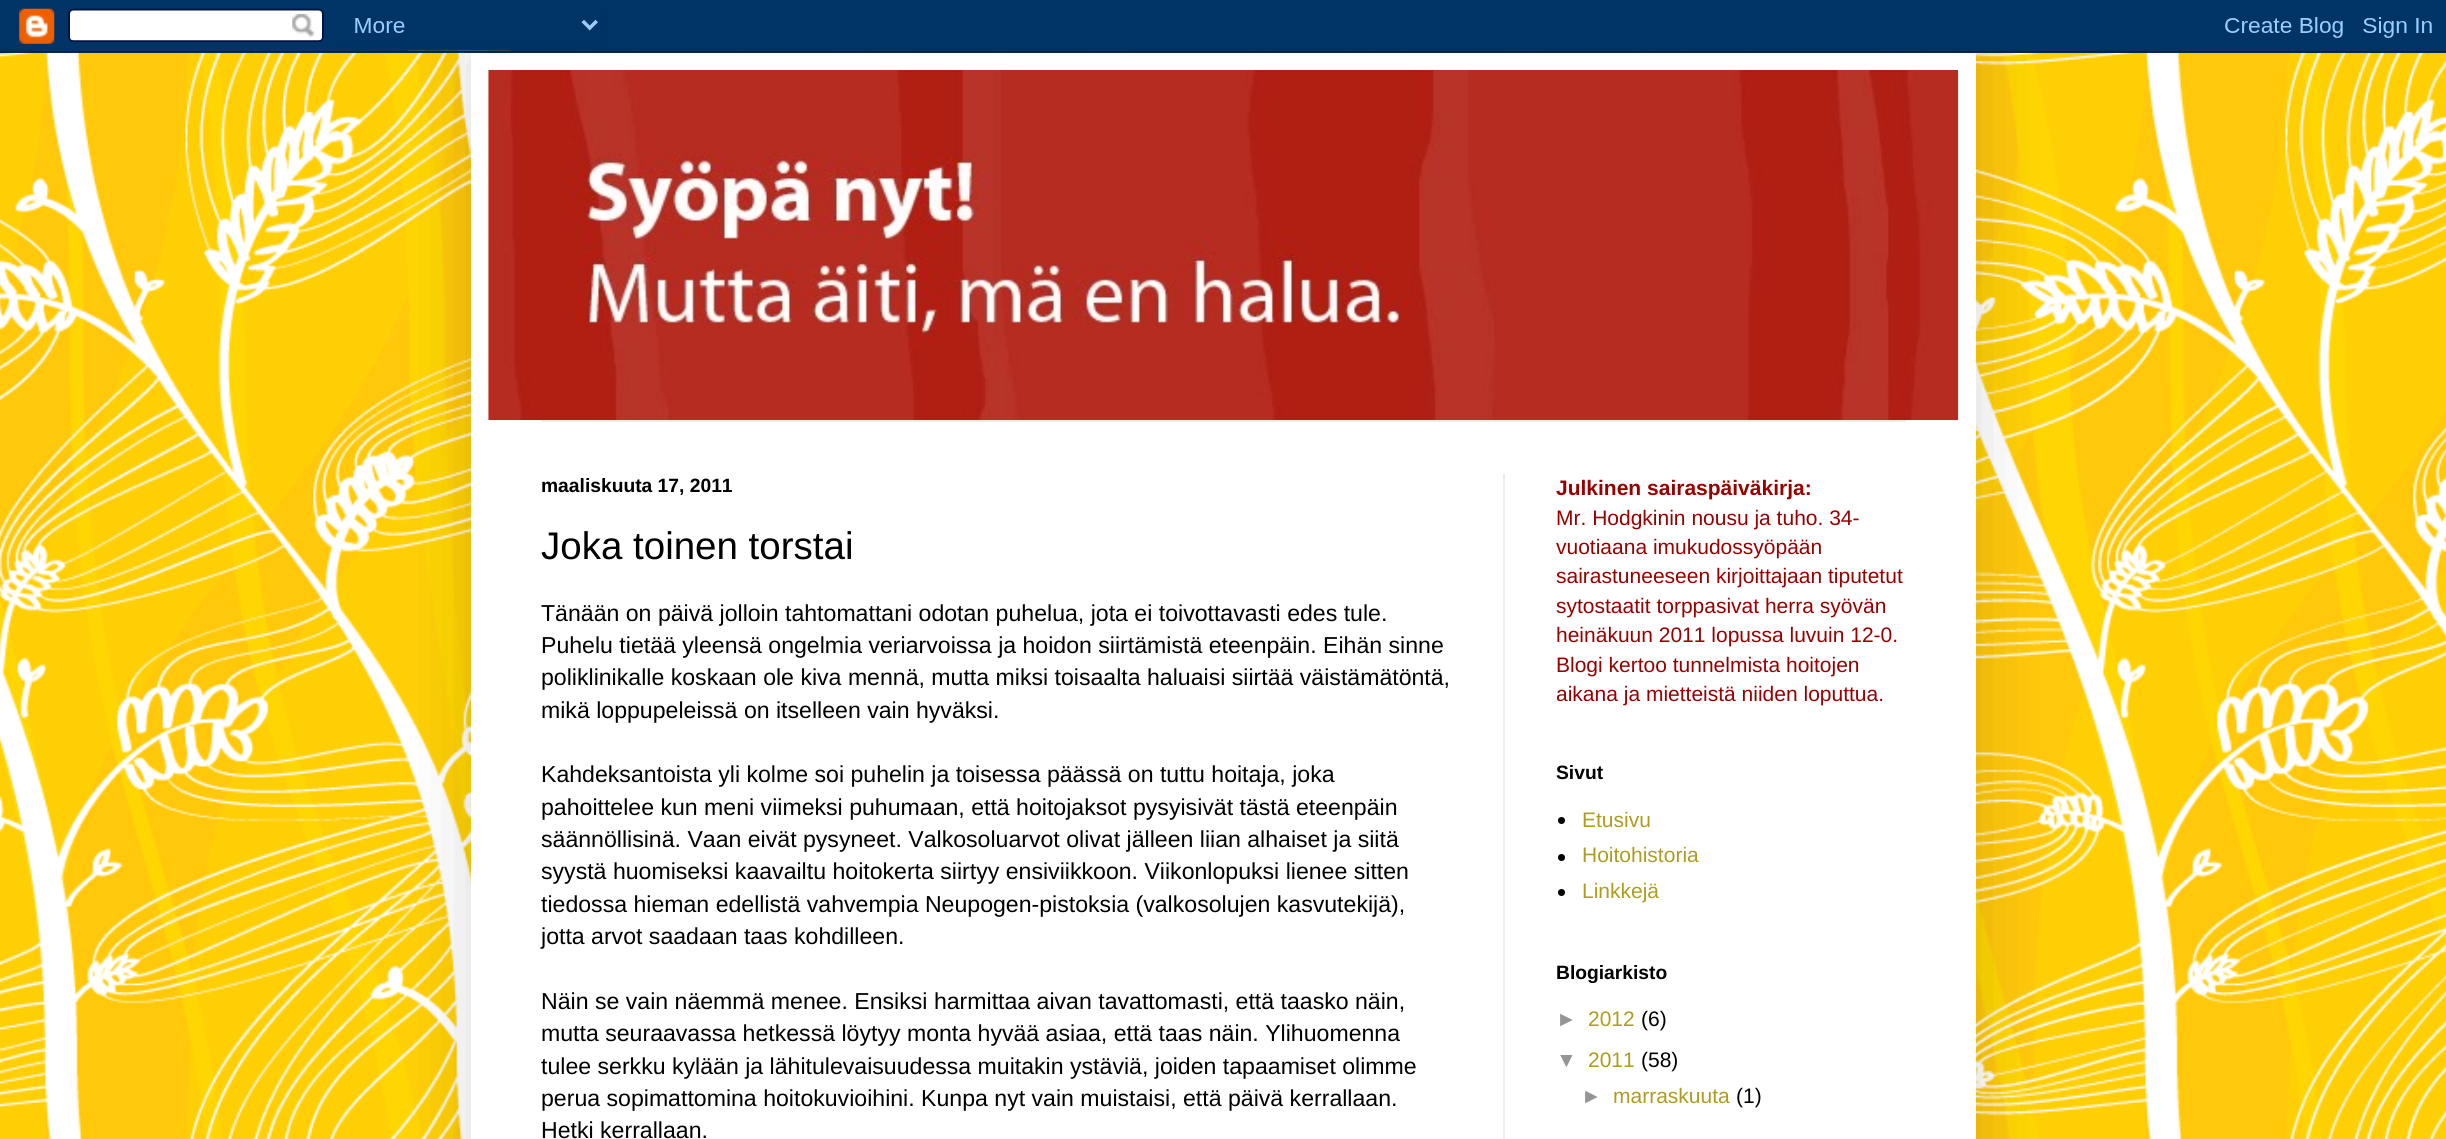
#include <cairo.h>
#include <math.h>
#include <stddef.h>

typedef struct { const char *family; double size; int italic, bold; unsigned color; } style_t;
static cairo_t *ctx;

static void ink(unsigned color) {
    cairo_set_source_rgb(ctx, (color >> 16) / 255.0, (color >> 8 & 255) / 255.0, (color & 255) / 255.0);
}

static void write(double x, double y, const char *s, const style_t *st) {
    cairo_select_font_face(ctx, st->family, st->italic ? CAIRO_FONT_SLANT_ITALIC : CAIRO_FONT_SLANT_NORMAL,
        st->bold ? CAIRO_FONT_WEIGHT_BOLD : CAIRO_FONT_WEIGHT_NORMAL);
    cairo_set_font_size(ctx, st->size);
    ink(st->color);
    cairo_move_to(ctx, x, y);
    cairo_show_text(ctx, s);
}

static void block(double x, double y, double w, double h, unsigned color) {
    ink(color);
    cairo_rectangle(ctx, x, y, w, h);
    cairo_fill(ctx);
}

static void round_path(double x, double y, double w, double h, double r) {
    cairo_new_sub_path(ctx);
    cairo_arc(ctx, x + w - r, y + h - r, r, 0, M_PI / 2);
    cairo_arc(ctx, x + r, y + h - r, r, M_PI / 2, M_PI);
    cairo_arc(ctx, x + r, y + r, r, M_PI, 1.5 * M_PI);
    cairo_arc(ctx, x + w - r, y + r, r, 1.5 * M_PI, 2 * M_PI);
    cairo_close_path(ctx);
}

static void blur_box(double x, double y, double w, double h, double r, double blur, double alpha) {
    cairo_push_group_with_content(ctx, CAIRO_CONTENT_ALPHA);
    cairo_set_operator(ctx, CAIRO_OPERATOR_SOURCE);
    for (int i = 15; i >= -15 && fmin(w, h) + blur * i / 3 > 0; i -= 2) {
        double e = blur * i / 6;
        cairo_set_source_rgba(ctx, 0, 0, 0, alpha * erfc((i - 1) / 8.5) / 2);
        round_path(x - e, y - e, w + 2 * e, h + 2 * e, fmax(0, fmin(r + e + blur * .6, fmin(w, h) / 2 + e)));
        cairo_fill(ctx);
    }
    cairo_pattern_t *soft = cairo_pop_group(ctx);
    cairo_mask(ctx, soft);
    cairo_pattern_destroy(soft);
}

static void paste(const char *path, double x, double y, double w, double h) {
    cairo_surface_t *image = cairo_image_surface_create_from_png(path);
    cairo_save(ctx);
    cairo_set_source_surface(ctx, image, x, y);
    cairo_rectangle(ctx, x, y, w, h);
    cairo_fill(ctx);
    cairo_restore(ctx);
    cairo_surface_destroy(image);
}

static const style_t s1 = {"Liberation Sans", 19.25, 0, 1, 0x000000};
static const style_t s2 = {"Liberation Sans", 38.5, 0, 0, 0x000000};
static const style_t s3 = {"Liberation Sans", 23.1, 0, 0, 0x000000};
static const style_t s4 = {"Liberation Sans", 21, 0, 1, 0x990000};
static const style_t s5 = {"Liberation Sans", 21, 0, 0, 0x990000};
static const style_t s6 = {"Liberation Sans", 21, 0, 0, 0xad9d1f};
static const style_t s7 = {"Liberation Sans", 21, 0, 0, 0x959595};
static const style_t s8 = {"Liberation Sans", 21, 0, 0, 0x000000};

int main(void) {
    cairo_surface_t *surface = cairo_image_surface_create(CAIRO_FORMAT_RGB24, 2446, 1139);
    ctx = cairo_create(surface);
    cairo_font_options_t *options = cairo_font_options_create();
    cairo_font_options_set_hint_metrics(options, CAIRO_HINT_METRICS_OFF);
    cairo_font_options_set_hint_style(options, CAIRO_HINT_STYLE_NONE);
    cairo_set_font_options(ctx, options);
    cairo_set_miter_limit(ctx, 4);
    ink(0xffffff);
    cairo_paint(ctx);
    paste("pic1.png", 0, 50, 2446, 1089);
    ink(0x000000);
    blur_box(471, 53, 1505, 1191, 0, 35, 0.15);
    paste("pic2.png", 0, 0, 2446, 53);
    block(471, 53, 1505, 1086, 0xffffff);
    paste("pic3.png", 488, 70, 1471, 350);
    block(541, 420, 1365, 2, 0xececec);
    block(1503, 474, 2, 665, 0xececec);
    write(541, 492, "maaliskuuta 17, 2011", &s1);
    write(541, 559, "Joka toinen torstai", &s2);
    write(541, 621, "Tänään on päivä jolloin tahtomattani odotan puhelua, jota ei toivottavasti edes tule.", &s3);
    write(541, 653, "Puhelu tietää yleensä ongelmia veriarvoissa ja hoidon siirtämistä eteenpäin. Eihän sinne", &s3);
    write(541, 685, "poliklinikalle koskaan ole kiva mennä, mutta miksi toisaalta haluaisi siirtää väistämätöntä,", &s3);
    write(541, 718, "mikä loppupeleissä on itselleen vain hyväksi.", &s3);
    write(541, 782, "Kahdeksantoista yli kolme soi puhelin ja toisessa päässä on tuttu hoitaja, joka", &s3);
    write(541, 815, "pahoittelee kun meni viimeksi puhumaan, että hoitojaksot pysyisivät tästä eteenpäin", &s3);
    write(541, 847, "säännöllisinä. Vaan eivät pysyneet. Valkosoluarvot olivat jälleen liian alhaiset ja siitä", &s3);
    write(541, 879, "syystä huomiseksi kaavailtu hoitokerta siirtyy ensiviikkoon. Viikonlopuksi lienee sitten", &s3);
    write(541, 912, "tiedossa hieman edellistä vahvempia Neupogen-pistoksia (valkosolujen kasvutekijä),", &s3);
    write(541, 944, "jotta arvot saadaan taas kohdilleen.", &s3);
    write(541, 1009, "Näin se vain näemmä menee. Ensiksi harmittaa aivan tavattomasti, että taasko näin,", &s3);
    write(541, 1041, "mutta seuraavassa hetkessä löytyy monta hyvää asiaa, että taas näin. Ylihuomenna", &s3);
    write(541, 1074, "tulee serkku kylään ja lähitulevaisuudessa muitakin ystäviä, joiden tapaamiset olimme", &s3);
    write(541, 1106, "perua sopimattomina hoitokuvioihini. Kunpa nyt vain muistaisi, että päivä kerrallaan.", &s3);
    write(541, 1138, "Hetki kerrallaan.", &s3);
    write(1556, 495, "Julkinen sairaspäiväkirja:", &s4);
    write(1556, 525, "Mr. Hodgkinin nousu ja tuho. 34-", &s5);
    write(1556, 554, "vuotiaana imukudossyöpään", &s5);
    write(1556, 583, "sairastuneeseen kirjoittajaan tiputetut", &s5);
    write(1556, 613, "sytostaatit torppasivat herra syövän", &s5);
    write(1556, 642, "heinäkuun 2011 lopussa luvuin 12-0.", &s5);
    write(1556, 672, "Blogi kertoo tunnelmista hoitojen", &s5);
    write(1556, 701, "aikana ja mietteistä niiden loputtua.", &s5);
    write(1556, 779, "Sivut", &s1);
    cairo_new_path(ctx);
    cairo_arc(ctx, 1561.5, 820.5, 3.5, 0, 2 * M_PI);
    cairo_fill(ctx);
    write(1582, 827, "Etusivu", &s6);
    ink(0x000000);
    cairo_new_path(ctx);
    cairo_arc(ctx, 1561.5, 857.5, 3.5, 0, 2 * M_PI);
    cairo_fill(ctx);
    write(1582, 862, "Hoitohistoria", &s6);
    ink(0x000000);
    cairo_new_path(ctx);
    cairo_arc(ctx, 1561.5, 892.5, 3.5, 0, 2 * M_PI);
    cairo_fill(ctx);
    write(1582, 898, "Linkkejä", &s6);
    write(1556, 979, "Blogiarkisto", &s1);
    write(1556, 1026, "►", &s7);
    write(1588, 1026, "2012", &s6);
    write(1641, 1026, "(6)", &s8);
    write(1556, 1067, "▼", &s7);
    write(1588, 1067, "2011", &s6);
    write(1641, 1067, "(58)", &s8);
    write(1581, 1103, "►", &s7);
    write(1613, 1103, "marraskuuta", &s6);
    write(1736, 1103, "(1)", &s8);
    cairo_surface_write_to_png(surface, "screenshot.png");
    cairo_font_options_destroy(options);
    cairo_destroy(ctx);
    cairo_surface_destroy(surface);
    return 0;
}
